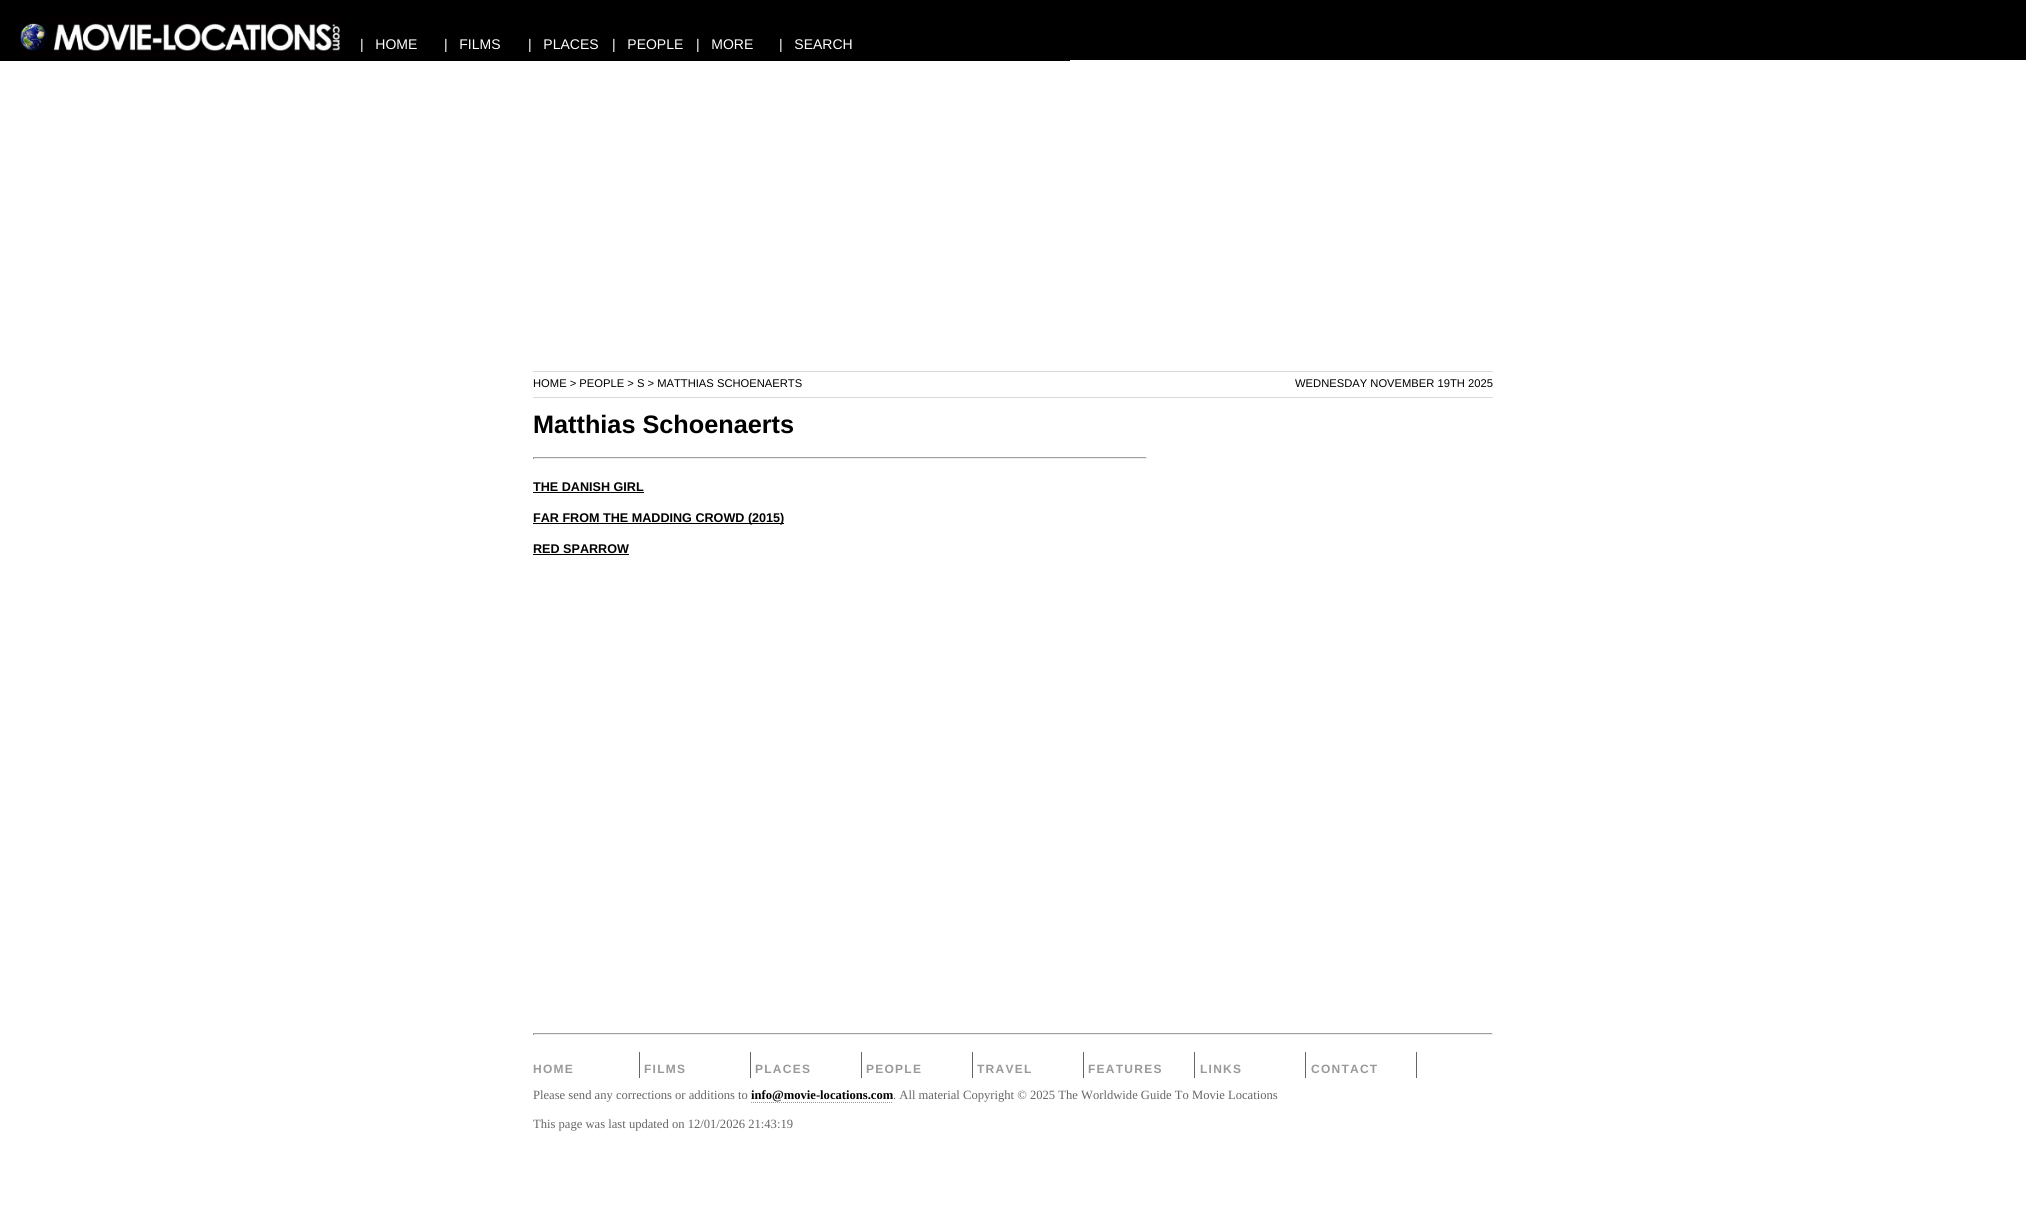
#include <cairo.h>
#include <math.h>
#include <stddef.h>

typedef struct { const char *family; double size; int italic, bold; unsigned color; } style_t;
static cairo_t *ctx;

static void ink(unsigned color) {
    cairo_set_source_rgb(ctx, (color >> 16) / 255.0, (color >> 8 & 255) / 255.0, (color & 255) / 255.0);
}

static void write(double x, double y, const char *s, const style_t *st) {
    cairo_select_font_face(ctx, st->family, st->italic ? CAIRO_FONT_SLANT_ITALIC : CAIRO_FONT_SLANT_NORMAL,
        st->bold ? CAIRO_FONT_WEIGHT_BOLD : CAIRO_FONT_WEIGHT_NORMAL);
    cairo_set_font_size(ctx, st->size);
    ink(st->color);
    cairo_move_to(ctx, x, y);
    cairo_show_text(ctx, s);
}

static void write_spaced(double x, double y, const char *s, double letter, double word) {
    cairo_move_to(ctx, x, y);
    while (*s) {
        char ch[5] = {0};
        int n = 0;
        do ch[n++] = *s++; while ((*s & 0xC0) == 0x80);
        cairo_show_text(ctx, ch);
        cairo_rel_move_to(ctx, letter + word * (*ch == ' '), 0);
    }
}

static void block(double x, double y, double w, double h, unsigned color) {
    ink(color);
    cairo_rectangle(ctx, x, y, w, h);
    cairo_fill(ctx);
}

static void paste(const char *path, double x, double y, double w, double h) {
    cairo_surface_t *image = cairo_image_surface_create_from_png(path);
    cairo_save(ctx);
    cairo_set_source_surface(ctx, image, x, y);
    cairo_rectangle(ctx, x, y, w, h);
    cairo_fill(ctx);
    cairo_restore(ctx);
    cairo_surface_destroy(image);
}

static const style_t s1 = {"Liberation Sans", 14, 0, 0, 0xffffff};
static const style_t s2 = {"Liberation Sans", 11.2, 0, 0, 0x000000};
static const style_t s3 = {"Liberation Sans", 25.25, 0, 1, 0x000000};
static const style_t s4 = {"Liberation Sans", 12.6, 0, 1, 0x000000};
static const style_t s5 = {"Liberation Serif", 12.6, 0, 0, 0x666666};
static const style_t s6 = {"Liberation Serif", 12.6, 0, 1, 0x000000};

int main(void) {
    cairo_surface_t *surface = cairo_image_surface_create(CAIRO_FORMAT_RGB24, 2026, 1217);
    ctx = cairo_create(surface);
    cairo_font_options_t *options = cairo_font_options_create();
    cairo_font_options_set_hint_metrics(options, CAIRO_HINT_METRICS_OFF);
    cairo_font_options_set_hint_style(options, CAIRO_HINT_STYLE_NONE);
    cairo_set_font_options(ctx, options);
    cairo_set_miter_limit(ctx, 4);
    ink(0xffffff);
    cairo_paint(ctx);
    block(1070, 0, 956, 60, 0x000000);
    block(0, 0, 1070, 61, 0x000000);
    paste("pic1.png", 20, 17, 320, 40);
    write(360, 49, "|   HOME", &s1);
    write(444, 49, "|   FILMS", &s1);
    write(528, 49, "|   PLACES", &s1);
    write(612, 49, "|   PEOPLE", &s1);
    write(696, 49, "|   MORE", &s1);
    write(779, 49, "|   SEARCH", &s1);
    block(533, 371, 960, 1, 0xdadada);
    block(533, 397, 960, 1, 0xdadada);
    write(533, 387, "HOME > PEOPLE > S > MATTHIAS SCHOENAERTS", &s2);
    write(1295, 387, "WEDNESDAY NOVEMBER 19TH 2025", &s2);
    write(533, 433, "Matthias Schoenaerts", &s3);
    block(533, 457, 614, 1, 0x9f9f9f);
    block(1146, 457, 1, 2, 0xeeeeee);
    block(533, 458, 614, 1, 0xeeeeee);
    block(533, 457, 1, 2, 0x9f9f9f);
    write(533, 491, "THE DANISH GIRL", &s4);
    block(533, 492, 111, 1, 0x000000);
    block(533, 523, 251, 1, 0x000000);
    write(533, 522, "FAR FROM THE MADDING CROWD (2015)", &s4);
    write(533, 553, "RED SPARROW", &s4);
    block(533, 554, 96, 1, 0x000000);
    block(533, 1033, 960, 1, 0x9f9f9f);
    block(1492, 1033, 1, 2, 0xeeeeee);
    block(533, 1034, 960, 1, 0xeeeeee);
    block(533, 1033, 1, 2, 0x9f9f9f);
    block(639, 1052, 1, 26, 0x666666);
    cairo_set_font_size(ctx, 12);
    ink(0x999999);
    write_spaced(533, 1073, "HOME", 1.25, 0);
    block(750, 1052, 1, 26, 0x666666);
    ink(0x999999);
    write_spaced(644, 1073, "FILMS", 1.25, 0);
    block(861, 1052, 1, 26, 0x666666);
    ink(0x999999);
    write_spaced(755, 1073, "PLACES", 1.25, 0);
    block(972, 1052, 1, 26, 0x666666);
    ink(0x999999);
    write_spaced(866, 1073, "PEOPLE", 1.25, 0);
    block(1083, 1052, 1, 26, 0x666666);
    ink(0x999999);
    write_spaced(977, 1073, "TRAVEL", 1.25, 0);
    block(1194, 1052, 1, 26, 0x666666);
    ink(0x999999);
    write_spaced(1088, 1073, "FEATURES", 1.25, 0);
    block(1305, 1052, 1, 26, 0x666666);
    ink(0x999999);
    write_spaced(1200, 1073, "LINKS", 1.25, 0);
    block(1416, 1052, 1, 26, 0x666666);
    ink(0x999999);
    write_spaced(1311, 1073, "CONTACT", 1.25, 0);
    write(533, 1099, "Please send any corrections or additions to", &s5);
    write(751, 1099, "info@movie-locations.com", &s6);
    cairo_new_path(ctx);
    cairo_move_to(ctx, 751, 1102.5);
    cairo_line_to(ctx, 893, 1102.5);
    ink(0x999999);
    cairo_set_line_width(ctx, 1);
    cairo_set_dash(ctx, (double[]){1, 1}, 2, 0);
    cairo_stroke(ctx);
    write(893, 1099, ". All material Copyright © 2025 The Worldwide Guide To Movie Locations", &s5);
    write(533, 1128, "This page was last updated on 12/01/2026 21:43:19", &s5);
    cairo_surface_write_to_png(surface, "screenshot.png");
    cairo_font_options_destroy(options);
    cairo_destroy(ctx);
    cairo_surface_destroy(surface);
    return 0;
}
